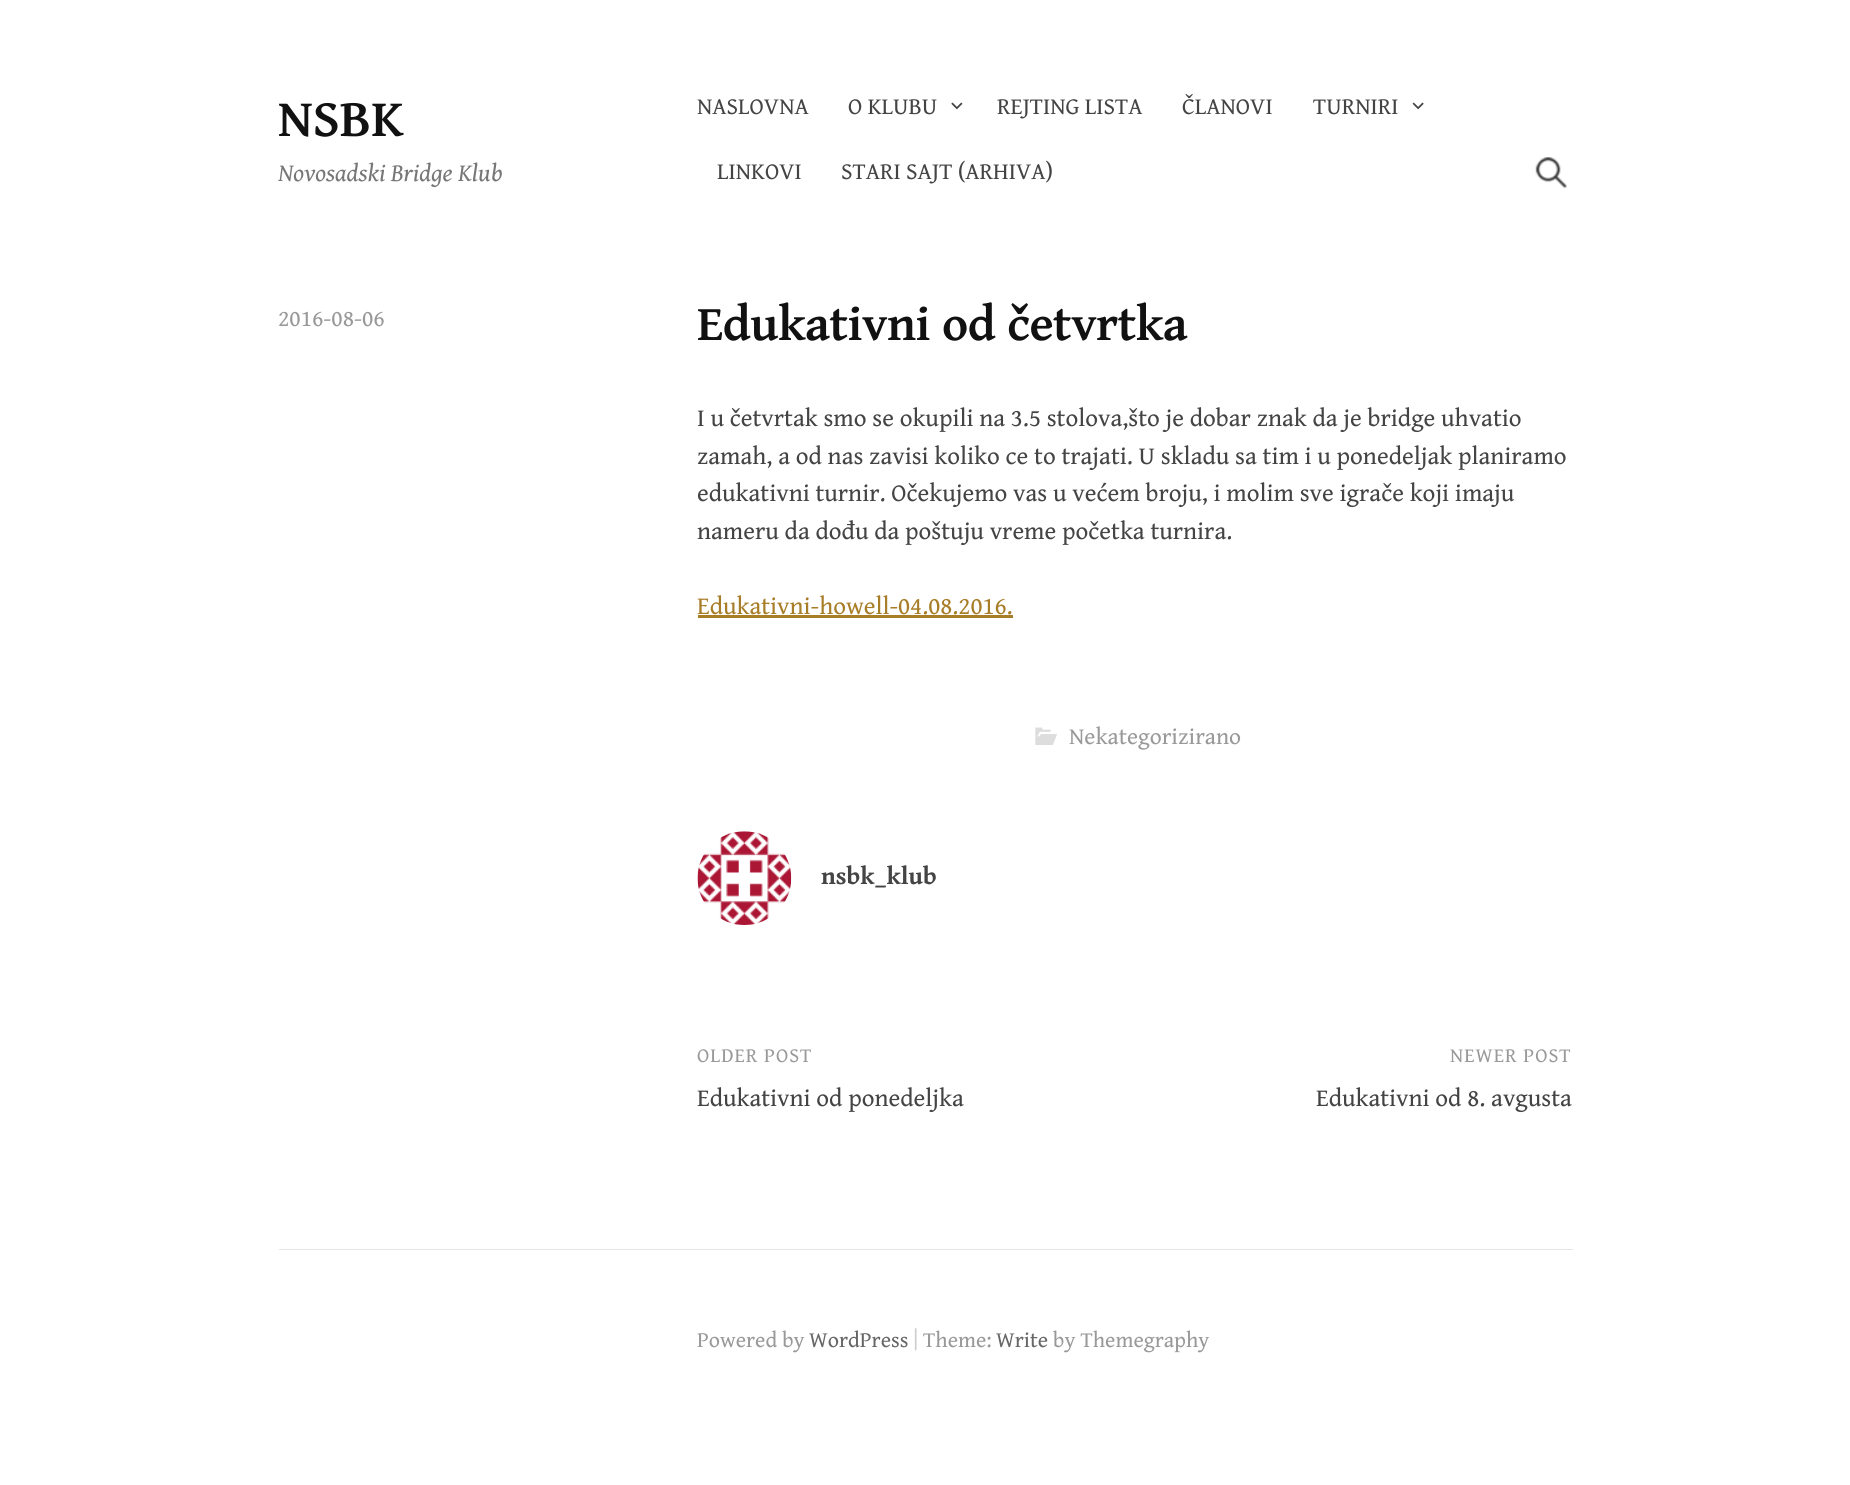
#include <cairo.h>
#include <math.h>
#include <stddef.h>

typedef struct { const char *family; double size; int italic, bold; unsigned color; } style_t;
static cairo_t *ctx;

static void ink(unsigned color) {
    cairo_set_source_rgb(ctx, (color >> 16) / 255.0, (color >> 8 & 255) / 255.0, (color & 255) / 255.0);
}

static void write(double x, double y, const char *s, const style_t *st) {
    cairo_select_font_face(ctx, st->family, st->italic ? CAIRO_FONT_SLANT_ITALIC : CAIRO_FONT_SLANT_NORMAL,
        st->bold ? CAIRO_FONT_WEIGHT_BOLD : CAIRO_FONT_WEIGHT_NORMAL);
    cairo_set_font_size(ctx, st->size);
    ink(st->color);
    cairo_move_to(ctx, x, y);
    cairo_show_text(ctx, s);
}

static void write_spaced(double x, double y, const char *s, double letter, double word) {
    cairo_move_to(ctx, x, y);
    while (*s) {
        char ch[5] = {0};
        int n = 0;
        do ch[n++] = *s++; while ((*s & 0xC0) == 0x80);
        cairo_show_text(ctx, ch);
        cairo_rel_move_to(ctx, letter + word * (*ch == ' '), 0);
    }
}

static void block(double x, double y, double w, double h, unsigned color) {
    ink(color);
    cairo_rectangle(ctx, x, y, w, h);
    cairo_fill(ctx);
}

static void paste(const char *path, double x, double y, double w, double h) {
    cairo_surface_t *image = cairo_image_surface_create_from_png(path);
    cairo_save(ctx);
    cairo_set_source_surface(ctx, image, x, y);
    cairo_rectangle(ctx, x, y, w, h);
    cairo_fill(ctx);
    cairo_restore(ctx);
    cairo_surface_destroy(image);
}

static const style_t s1 = {"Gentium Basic", 52.5, 0, 1, 0x111111};
static const style_t s2 = {"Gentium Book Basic", 25, 1, 0, 0x777777};
static const style_t s3 = {"Gentium Book Basic", 23.5, 0, 0, 0x444444};
static const style_t s4 = {"Gentium Book Basic", 23.5, 0, 0, 0x999999};
static const style_t s5 = {"Gentium Book Basic", 25, 0, 0, 0x444444};
static const style_t s6 = {"Gentium Book Basic", 25, 0, 0, 0xa87d28};
static const style_t s7 = {"Gentium Book Basic", 25, 0, 1, 0x444444};
static const style_t s8 = {"Gentium Book Basic", 22, 0, 0, 0x999999};
static const style_t s9 = {"Gentium Book Basic", 22, 0, 0, 0x666666};
static const style_t s10 = {"Gentium Book Basic", 22, 0, 0, 0xcccccc};

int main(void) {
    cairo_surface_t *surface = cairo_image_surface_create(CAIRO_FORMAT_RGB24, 1850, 1485);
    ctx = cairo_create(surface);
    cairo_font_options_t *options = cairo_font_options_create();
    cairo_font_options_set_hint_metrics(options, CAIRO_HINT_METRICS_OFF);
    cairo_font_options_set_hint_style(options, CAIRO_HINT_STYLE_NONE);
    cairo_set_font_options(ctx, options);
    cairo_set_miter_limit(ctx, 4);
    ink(0xffffff);
    cairo_paint(ctx);
    write(278, 136, "NSBK", &s1);
    write(278, 181, "Novosadski Bridge Klub", &s2);
    write(697, 114, "NASLOVNA", &s3);
    write(848, 114, "O KLUBU", &s3);
    paste("pic1.png", 951, 102, 12, 8);
    write(997, 114, "REJTING LISTA", &s3);
    write(1182, 114, "ČLANOVI", &s3);
    write(1313, 114, "TURNIRI", &s3);
    paste("pic2.png", 1412, 102, 12, 8);
    write(717, 179, "LINKOVI", &s3);
    write(841, 179, "STARI SAJT (ARHIVA)", &s3);
    paste("pic3.png", 1535, 157, 32, 32);
    write(278, 326, "2016-08-06", &s4);
    cairo_select_font_face(ctx, "Gentium Basic", CAIRO_FONT_SLANT_NORMAL, CAIRO_FONT_WEIGHT_BOLD);
    cairo_set_font_size(ctx, 50);
    ink(0x111111);
    write_spaced(697, 340, "Edukativni od četvrtka", -0.5, 0);
    write(697, 426, "I u četvrtak smo se okupili na 3.5 stolova,što je dobar znak da je bridge uhvatio", &s5);
    write(697, 464, "zamah, a od nas zavisi koliko ce to trajati. U skladu sa tim i u ponedeljak planiramo", &s5);
    write(697, 501, "edukativni turnir. Očekujemo vas u većem broju, i molim sve igrače koji imaju", &s5);
    write(697, 539, "nameru da dođu da poštuju vreme početka turnira.", &s5);
    write(697, 614, "Edukativni-howell-04.08.2016.", &s6);
    block(698, 615, 315, 3, 0xa87d28);
    paste("pic4.png", 1035, 727, 22, 18);
    write(1069, 744, "Nekategorizirano", &s4);
    paste("pic5.png", 697, 831, 95, 94);
    write(821, 884, "nsbk_klub", &s7);
    cairo_select_font_face(ctx, "Gentium Book Basic", CAIRO_FONT_SLANT_NORMAL, CAIRO_FONT_WEIGHT_NORMAL);
    cairo_set_font_size(ctx, 20.25);
    ink(0x999999);
    write_spaced(697, 1062, "OLDER POST", 1, 0);
    write(697, 1106, "Edukativni od ponedeljka", &s5);
    cairo_set_font_size(ctx, 20.25);
    ink(0x999999);
    write_spaced(1450, 1062, "NEWER POST", 1, 0);
    write(1316, 1106, "Edukativni od 8. avgusta", &s5);
    block(279, 1249, 1294, 1, 0xe6e6e6);
    write(697, 1347, "Powered by", &s8);
    write(809, 1347, "WordPress", &s9);
    write(913, 1346, "|", &s10);
    write(923, 1347, "Theme:", &s8);
    write(996, 1347, "Write", &s9);
    write(1053, 1347, "by Themegraphy", &s8);
    cairo_surface_write_to_png(surface, "screenshot.png");
    cairo_font_options_destroy(options);
    cairo_destroy(ctx);
    cairo_surface_destroy(surface);
    return 0;
}
